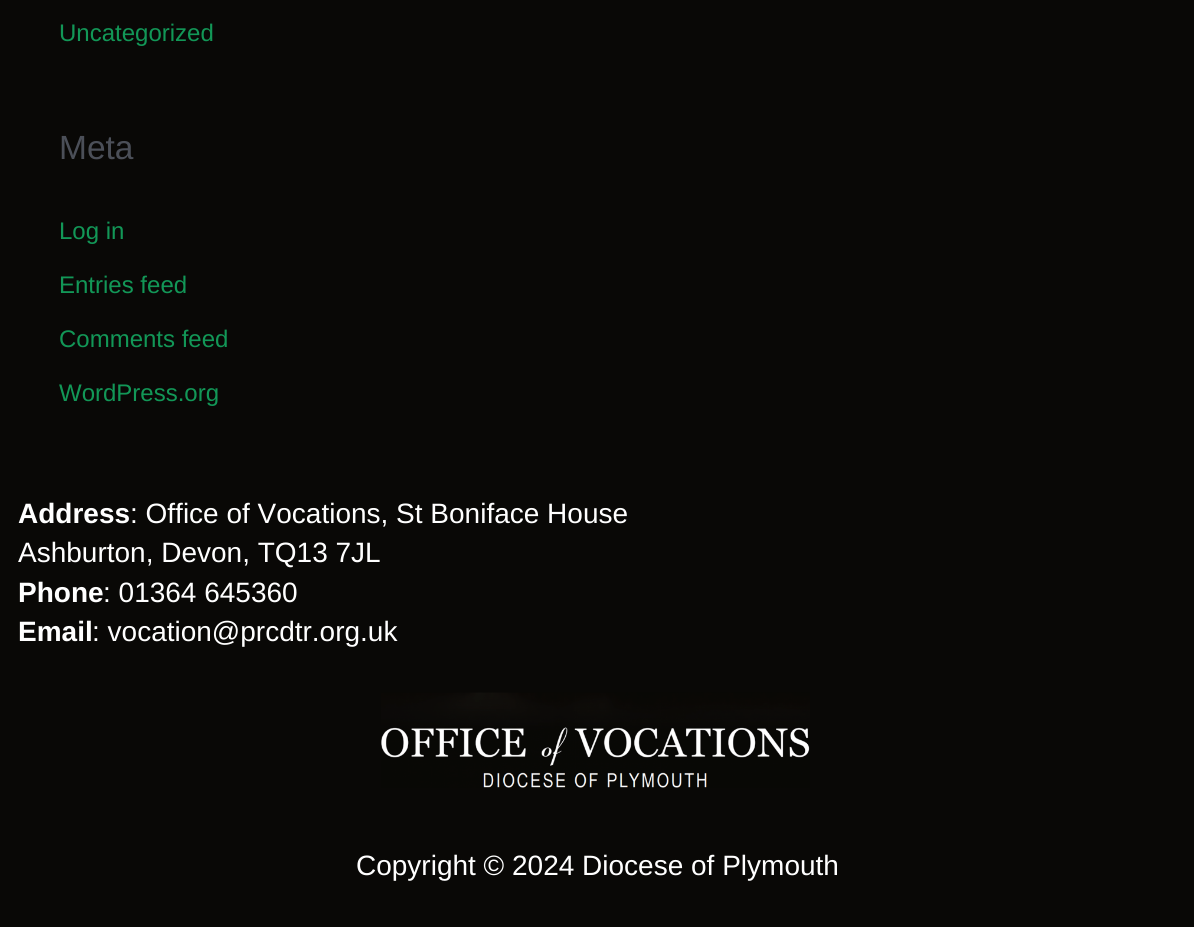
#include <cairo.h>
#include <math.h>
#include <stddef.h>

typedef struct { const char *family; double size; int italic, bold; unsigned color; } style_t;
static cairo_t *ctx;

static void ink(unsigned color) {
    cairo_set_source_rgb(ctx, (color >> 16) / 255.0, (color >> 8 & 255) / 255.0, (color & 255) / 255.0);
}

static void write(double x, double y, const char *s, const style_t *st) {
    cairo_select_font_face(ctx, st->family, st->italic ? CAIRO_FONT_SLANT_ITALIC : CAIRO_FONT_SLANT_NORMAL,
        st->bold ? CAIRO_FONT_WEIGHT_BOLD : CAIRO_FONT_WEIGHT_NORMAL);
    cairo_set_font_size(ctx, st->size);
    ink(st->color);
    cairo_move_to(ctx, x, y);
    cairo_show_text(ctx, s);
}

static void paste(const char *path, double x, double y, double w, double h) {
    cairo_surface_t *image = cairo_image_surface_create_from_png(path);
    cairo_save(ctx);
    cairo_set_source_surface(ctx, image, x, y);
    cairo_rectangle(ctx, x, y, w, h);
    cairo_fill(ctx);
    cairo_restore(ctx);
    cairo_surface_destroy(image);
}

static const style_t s1 = {"Liberation Sans", 24, 0, 0, 0x129757};
static const style_t s2 = {"Liberation Sans", 33.5, 0, 0, 0x4b4f58};
static const style_t s3 = {"Liberation Sans", 28, 0, 1, 0xffffff};
static const style_t s4 = {"Liberation Sans", 28, 0, 0, 0xffffff};

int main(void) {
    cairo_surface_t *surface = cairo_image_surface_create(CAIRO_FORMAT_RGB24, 1194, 927);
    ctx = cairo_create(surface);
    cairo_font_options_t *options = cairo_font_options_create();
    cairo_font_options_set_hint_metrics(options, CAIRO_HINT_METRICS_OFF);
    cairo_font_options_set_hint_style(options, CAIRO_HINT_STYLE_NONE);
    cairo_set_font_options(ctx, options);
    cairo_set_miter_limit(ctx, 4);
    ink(0x090806);
    cairo_paint(ctx);
    write(59, 41, "Uncategorized", &s1);
    write(59, 159, "Meta", &s2);
    write(59, 239, "Log in", &s1);
    write(59, 293, "Entries feed", &s1);
    write(59, 347, "Comments feed", &s1);
    write(59, 401, "WordPress.org", &s1);
    write(18, 523, "Address", &s3);
    write(130, 523, ": Office of Vocations, St Boniface House", &s4);
    write(18, 562, "Ashburton, Devon, TQ13 7JL", &s4);
    write(18, 602, "Phone", &s3);
    write(103, 602, ": 01364 645360", &s4);
    write(18, 641, "Email", &s3);
    write(92, 641, ": vocation@prcdtr.org.uk", &s4);
    paste("pic1.png", 381, 692, 429, 96);
    write(356, 875, "Copyright © 2024 Diocese of Plymouth", &s4);
    cairo_surface_write_to_png(surface, "screenshot.png");
    cairo_font_options_destroy(options);
    cairo_destroy(ctx);
    cairo_surface_destroy(surface);
    return 0;
}
